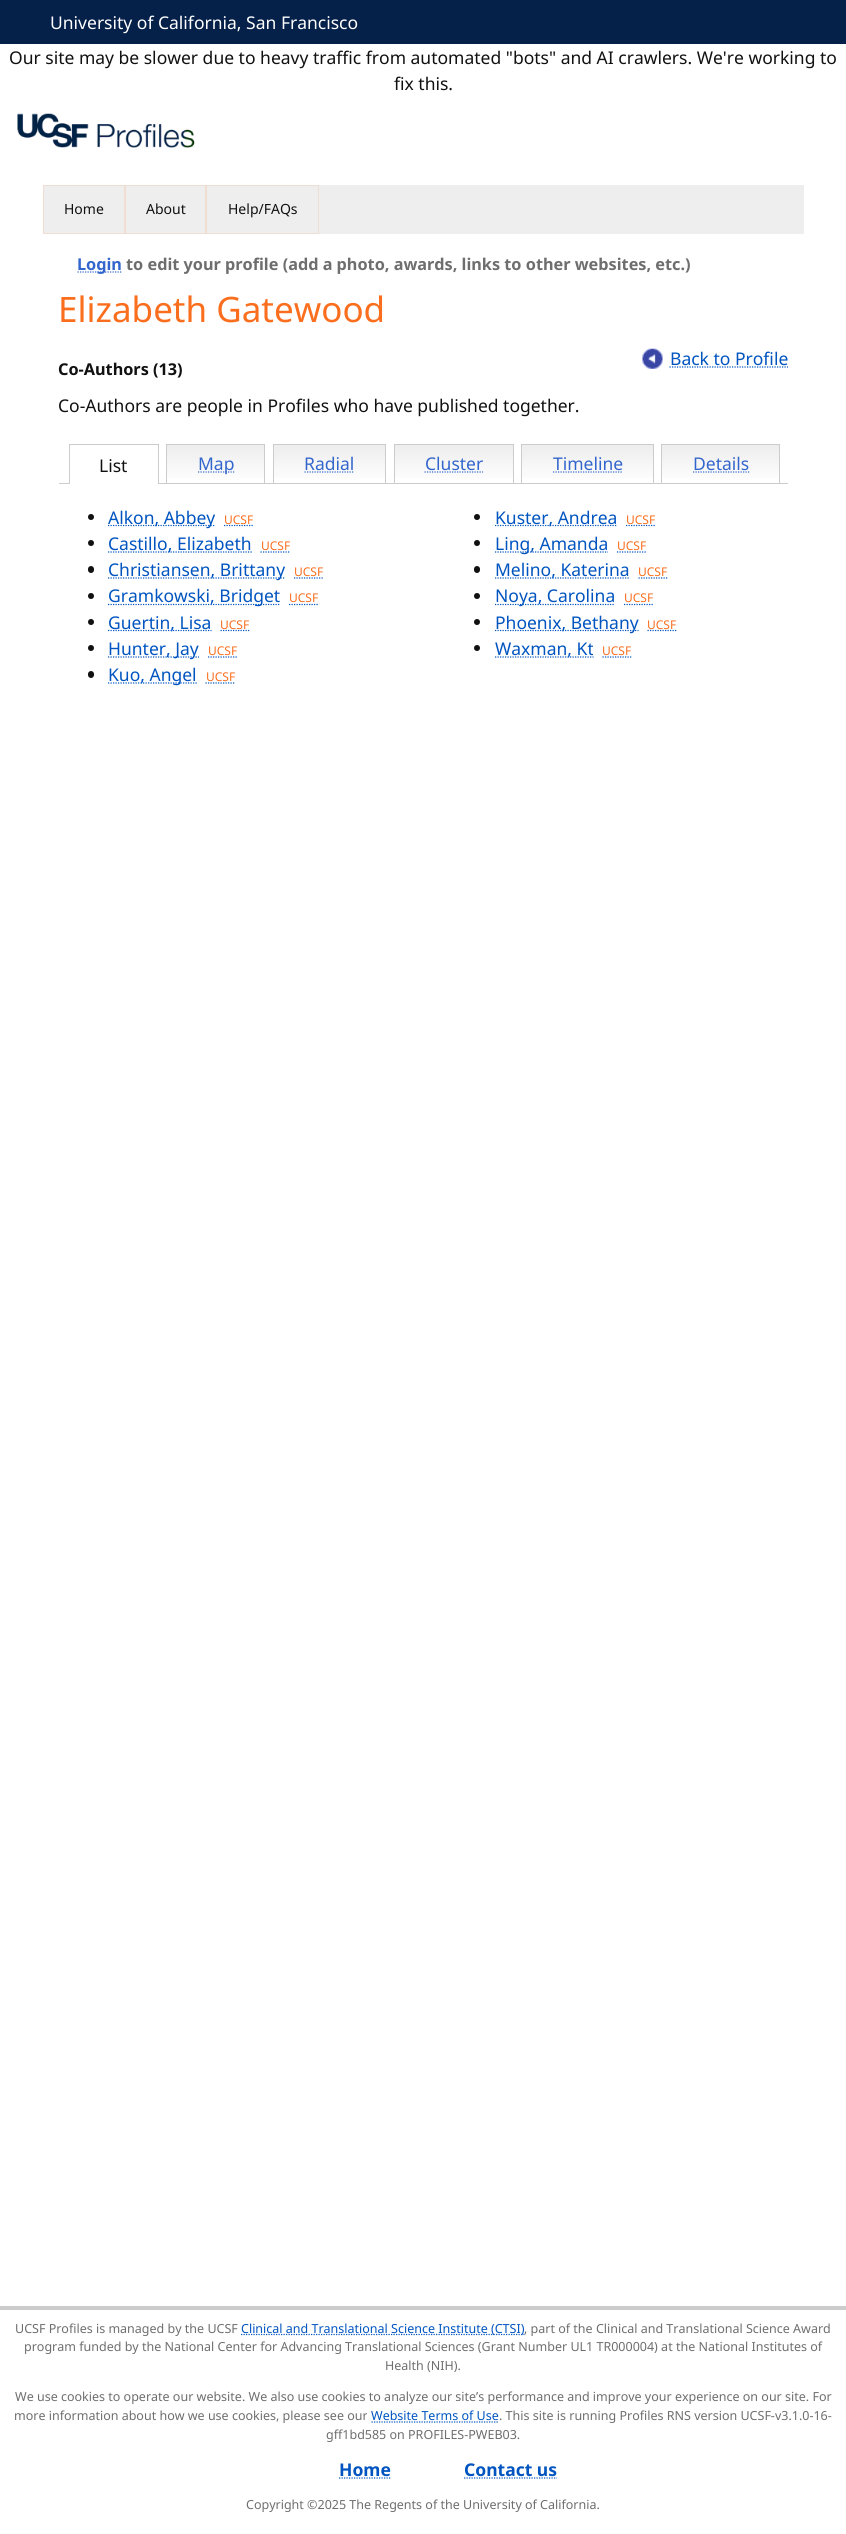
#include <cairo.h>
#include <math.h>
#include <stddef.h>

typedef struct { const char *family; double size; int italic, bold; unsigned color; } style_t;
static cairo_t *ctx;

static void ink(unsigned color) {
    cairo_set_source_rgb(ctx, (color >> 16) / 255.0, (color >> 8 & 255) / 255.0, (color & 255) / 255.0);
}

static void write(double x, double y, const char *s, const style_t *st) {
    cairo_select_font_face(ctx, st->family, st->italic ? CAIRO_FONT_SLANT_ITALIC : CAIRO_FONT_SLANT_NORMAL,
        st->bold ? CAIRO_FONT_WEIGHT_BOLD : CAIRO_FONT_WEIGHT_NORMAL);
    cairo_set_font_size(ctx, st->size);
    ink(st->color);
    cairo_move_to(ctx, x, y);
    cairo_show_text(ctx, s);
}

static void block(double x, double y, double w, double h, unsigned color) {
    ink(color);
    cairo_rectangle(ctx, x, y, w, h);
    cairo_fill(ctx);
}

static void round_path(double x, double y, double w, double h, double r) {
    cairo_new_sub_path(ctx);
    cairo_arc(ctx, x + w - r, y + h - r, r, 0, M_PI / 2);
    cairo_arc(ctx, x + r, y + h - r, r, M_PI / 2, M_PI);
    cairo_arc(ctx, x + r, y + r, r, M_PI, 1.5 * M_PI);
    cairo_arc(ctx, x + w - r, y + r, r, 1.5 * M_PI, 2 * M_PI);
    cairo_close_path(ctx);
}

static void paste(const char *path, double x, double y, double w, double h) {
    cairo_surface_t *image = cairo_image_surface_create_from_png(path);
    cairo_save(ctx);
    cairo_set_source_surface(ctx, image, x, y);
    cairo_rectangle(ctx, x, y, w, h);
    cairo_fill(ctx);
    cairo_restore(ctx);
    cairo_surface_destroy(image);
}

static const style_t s1 = {"Noto Sans", 17.5, 0, 0, 0xffffff};
static const style_t s2 = {"Noto Sans", 17.5, 0, 0, 0x111111};
static const style_t s3 = {"Noto Sans", 14, 0, 0, 0x111111};
static const style_t s4 = {"Noto Sans", 16.25, 0, 1, 0x3366cc};
static const style_t s5 = {"Noto Sans", 16.25, 0, 1, 0x6e6e6e};
static const style_t s6 = {"Noto Sans", 35, 0, 0, 0xfa6e1e};
static const style_t s7 = {"Noto Sans", 17.5, 0, 0, 0x0054c0};
static const style_t s8 = {"Noto Sans", 16.25, 0, 1, 0x111111};
static const style_t s9 = {"Noto Sans", 17.5, 0, 0, 0x3366cc};
static const style_t s10 = {"Noto Sans", 12, 0, 0, 0xfa6e1e};
static const style_t s11 = {"Noto Sans", 12.5, 0, 0, 0x6e6e6e};
static const style_t s12 = {"Noto Sans", 12.5, 0, 0, 0x0054c0};
static const style_t s13 = {"Noto Sans", 17.5, 0, 1, 0x0054c0};

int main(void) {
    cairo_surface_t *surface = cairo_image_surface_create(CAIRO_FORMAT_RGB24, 846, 2534);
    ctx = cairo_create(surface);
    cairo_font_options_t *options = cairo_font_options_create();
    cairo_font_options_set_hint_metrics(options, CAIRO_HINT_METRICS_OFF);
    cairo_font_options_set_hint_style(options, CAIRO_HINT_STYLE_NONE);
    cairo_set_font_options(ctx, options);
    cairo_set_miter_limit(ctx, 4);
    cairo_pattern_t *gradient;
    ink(0xffffff);
    cairo_paint(ctx);
    block(0, 0, 846, 44, 0x052049);
    write(50, 29, "University of California, San Francisco", &s1);
    write(9, 64, "Our site may be slower due to heavy traffic from automated \"bots\" and AI crawlers. We're working to", &s2);
    write(394, 90, "fix this.", &s2);
    paste("pic1.png", 17, 113, 178, 35);
    block(44, 185, 760, 49, 0xeeeeee);
    cairo_rectangle(ctx, 43.5, 185.5, 81, 48);
    ink(0xefded1);
    cairo_set_line_width(ctx, 1);
    cairo_stroke(ctx);
    write(64, 214, "Home", &s3);
    cairo_rectangle(ctx, 125.5, 185.5, 80, 48);
    ink(0xefded1);
    cairo_stroke(ctx);
    write(146, 214, "About", &s3);
    cairo_rectangle(ctx, 206.5, 185.5, 112, 48);
    ink(0xefded1);
    cairo_stroke(ctx);
    write(228, 214, "Help/FAQs", &s3);
    cairo_new_path(ctx);
    cairo_move_to(ctx, 77.5, 272);
    cairo_line_to(ctx, 122, 272);
    ink(0x3366cc);
    cairo_set_line_width(ctx, 1.2);
    cairo_set_dash(ctx, (double[]){1.25, 1.25}, 2, 0);
    cairo_stroke(ctx);
    write(77, 270, "Login", &s4);
    write(126, 270, "to edit your profile (add a photo, awards, links to other websites, etc.)", &s5);
    write(58, 322, "Elizabeth Gatewood", &s6);
    paste("pic2.png", 642, 348, 21, 21);
    write(670, 365, "Back to Profile", &s7);
    cairo_new_path(ctx);
    cairo_move_to(ctx, 669.5, 367);
    cairo_line_to(ctx, 788, 367);
    cairo_stroke(ctx);
    write(58, 375, "Co-Authors (13)", &s8);
    write(58, 412, "Co-Authors are people in Profiles who have published together.", &s2);
    block(59, 483, 729, 1, 0xcccccc);
    block(70, 483, 88, 1, 0xffffff);
    block(69, 444, 90, 1, 0xcccccc);
    block(158, 444, 1, 40, 0xcccccc);
    block(69, 444, 1, 40, 0xcccccc);
    write(99, 472, "List", &s2);
    gradient = cairo_pattern_create_linear(216, 445, 216, 483);
    cairo_pattern_add_color_stop_rgba(gradient, 0, 0.929, 0.929, 0.929, 1);
    cairo_pattern_add_color_stop_rgba(gradient, 1, 1, 1, 1, 1);
    cairo_set_source(ctx, gradient);
    cairo_pattern_destroy(gradient);
    cairo_rectangle(ctx, 167, 445, 97, 33);
    cairo_fill(ctx);
    block(166, 444, 99, 1, 0xcccccc);
    block(264, 444, 1, 39, 0xcccccc);
    block(166, 444, 1, 39, 0xcccccc);
    cairo_new_path(ctx);
    cairo_move_to(ctx, 198, 472);
    cairo_line_to(ctx, 234.5, 472);
    ink(0x3366cc);
    cairo_stroke(ctx);
    write(198, 470, "Map", &s9);
    gradient = cairo_pattern_create_linear(329, 445, 329, 483);
    cairo_pattern_add_color_stop_rgba(gradient, 0, 0.929, 0.929, 0.929, 1);
    cairo_pattern_add_color_stop_rgba(gradient, 1, 1, 1, 1, 1);
    cairo_set_source(ctx, gradient);
    cairo_pattern_destroy(gradient);
    cairo_rectangle(ctx, 274, 445, 111, 33);
    cairo_fill(ctx);
    block(273, 444, 113, 1, 0xcccccc);
    block(385, 444, 1, 39, 0xcccccc);
    block(273, 444, 1, 39, 0xcccccc);
    write(304, 470, "Radial", &s9);
    cairo_new_path(ctx);
    cairo_move_to(ctx, 304.5, 472);
    cairo_line_to(ctx, 354.5, 472);
    cairo_stroke(ctx);
    gradient = cairo_pattern_create_linear(454, 445, 454, 483);
    cairo_pattern_add_color_stop_rgba(gradient, 0, 0.929, 0.929, 0.929, 1);
    cairo_pattern_add_color_stop_rgba(gradient, 1, 1, 1, 1, 1);
    cairo_set_source(ctx, gradient);
    cairo_pattern_destroy(gradient);
    cairo_rectangle(ctx, 395, 445, 118, 33);
    cairo_fill(ctx);
    block(394, 444, 120, 1, 0xcccccc);
    block(513, 444, 1, 39, 0xcccccc);
    block(394, 444, 1, 39, 0xcccccc);
    write(425, 470, "Cluster", &s9);
    cairo_new_path(ctx);
    cairo_move_to(ctx, 424.5, 472);
    cairo_line_to(ctx, 483, 472);
    cairo_stroke(ctx);
    gradient = cairo_pattern_create_linear(588, 445, 588, 483);
    cairo_pattern_add_color_stop_rgba(gradient, 0, 0.929, 0.929, 0.929, 1);
    cairo_pattern_add_color_stop_rgba(gradient, 1, 1, 1, 1, 1);
    cairo_set_source(ctx, gradient);
    cairo_pattern_destroy(gradient);
    cairo_rectangle(ctx, 522, 445, 131, 33);
    cairo_fill(ctx);
    block(521, 444, 133, 1, 0xcccccc);
    block(653, 444, 1, 39, 0xcccccc);
    block(521, 444, 1, 39, 0xcccccc);
    write(553, 470, "Timeline", &s9);
    cairo_new_path(ctx);
    cairo_move_to(ctx, 553, 472);
    cairo_line_to(ctx, 623, 472);
    cairo_stroke(ctx);
    gradient = cairo_pattern_create_linear(721, 445, 721, 483);
    cairo_pattern_add_color_stop_rgba(gradient, 0, 0.929, 0.929, 0.929, 1);
    cairo_pattern_add_color_stop_rgba(gradient, 1, 1, 1, 1, 1);
    cairo_set_source(ctx, gradient);
    cairo_pattern_destroy(gradient);
    cairo_rectangle(ctx, 662, 445, 117, 33);
    cairo_fill(ctx);
    block(661, 444, 119, 1, 0xcccccc);
    block(779, 444, 1, 39, 0xcccccc);
    block(661, 444, 1, 39, 0xcccccc);
    write(693, 470, "Details", &s9);
    cairo_new_path(ctx);
    cairo_move_to(ctx, 693, 472);
    cairo_line_to(ctx, 749.5, 472);
    cairo_stroke(ctx);
    ink(0x111111);
    cairo_arc(ctx, 91, 517, 3, 0, 2 * M_PI);
    cairo_fill(ctx);
    cairo_new_path(ctx);
    cairo_move_to(ctx, 108, 525.5);
    cairo_line_to(ctx, 215.5, 525.5);
    ink(0x0054c0);
    cairo_stroke(ctx);
    write(108, 524, "Alkon, Abbey", &s7);
    cairo_new_path(ctx);
    cairo_move_to(ctx, 224, 525.5);
    cairo_line_to(ctx, 254, 525.5);
    cairo_stroke(ctx);
    write(224, 524, "UCSF", &s10);
    ink(0x111111);
    cairo_new_path(ctx);
    cairo_arc(ctx, 91, 543, 3, 0, 2 * M_PI);
    cairo_fill(ctx);
    cairo_new_path(ctx);
    cairo_move_to(ctx, 108, 552);
    cairo_line_to(ctx, 252, 552);
    ink(0x0054c0);
    cairo_stroke(ctx);
    write(108, 550, "Castillo, Elizabeth", &s7);
    write(261, 550, "UCSF", &s10);
    cairo_new_path(ctx);
    cairo_move_to(ctx, 260.5, 552);
    cairo_line_to(ctx, 290.5, 552);
    ink(0x0054c0);
    cairo_stroke(ctx);
    ink(0x111111);
    round_path(88, 566, 6, 7, 3);
    cairo_fill(ctx);
    cairo_new_path(ctx);
    cairo_move_to(ctx, 108, 578);
    cairo_line_to(ctx, 285.5, 578);
    ink(0x0054c0);
    cairo_stroke(ctx);
    write(108, 576, "Christiansen, Brittany", &s7);
    write(294, 576, "UCSF", &s10);
    cairo_new_path(ctx);
    cairo_move_to(ctx, 294, 578);
    cairo_line_to(ctx, 324, 578);
    ink(0x0054c0);
    cairo_stroke(ctx);
    ink(0x111111);
    cairo_arc(ctx, 91, 596, 3, 0, 2 * M_PI);
    cairo_fill(ctx);
    cairo_new_path(ctx);
    cairo_move_to(ctx, 108, 604.5);
    cairo_line_to(ctx, 280.5, 604.5);
    ink(0x0054c0);
    cairo_stroke(ctx);
    write(108, 602, "Gramkowski, Bridget", &s7);
    write(289, 602, "UCSF", &s10);
    cairo_new_path(ctx);
    cairo_move_to(ctx, 289, 604.5);
    cairo_line_to(ctx, 319, 604.5);
    ink(0x0054c0);
    cairo_stroke(ctx);
    ink(0x111111);
    cairo_arc(ctx, 91, 622, 3, 0, 2 * M_PI);
    cairo_fill(ctx);
    cairo_new_path(ctx);
    cairo_move_to(ctx, 108, 630.5);
    cairo_line_to(ctx, 211.5, 630.5);
    ink(0x0054c0);
    cairo_stroke(ctx);
    write(108, 629, "Guertin, Lisa", &s7);
    cairo_new_path(ctx);
    cairo_move_to(ctx, 220.5, 630.5);
    cairo_line_to(ctx, 250, 630.5);
    cairo_stroke(ctx);
    write(220, 629, "UCSF", &s10);
    ink(0x111111);
    cairo_new_path(ctx);
    cairo_arc(ctx, 91, 648, 3, 0, 2 * M_PI);
    cairo_fill(ctx);
    cairo_new_path(ctx);
    cairo_move_to(ctx, 108, 657);
    cairo_line_to(ctx, 199, 657);
    ink(0x0054c0);
    cairo_stroke(ctx);
    write(108, 655, "Hunter, Jay", &s7);
    write(208, 655, "UCSF", &s10);
    cairo_new_path(ctx);
    cairo_move_to(ctx, 208, 657);
    cairo_line_to(ctx, 237.5, 657);
    ink(0x0054c0);
    cairo_stroke(ctx);
    ink(0x111111);
    round_path(88, 671, 6, 7, 3);
    cairo_fill(ctx);
    cairo_new_path(ctx);
    cairo_move_to(ctx, 108, 683);
    cairo_line_to(ctx, 197, 683);
    ink(0x0054c0);
    cairo_stroke(ctx);
    write(108, 681, "Kuo, Angel", &s7);
    write(206, 681, "UCSF", &s10);
    cairo_new_path(ctx);
    cairo_move_to(ctx, 205.5, 683);
    cairo_line_to(ctx, 235.5, 683);
    ink(0x0054c0);
    cairo_stroke(ctx);
    ink(0x111111);
    cairo_arc(ctx, 477, 517, 3, 0, 2 * M_PI);
    cairo_fill(ctx);
    cairo_new_path(ctx);
    cairo_move_to(ctx, 495, 525.5);
    cairo_line_to(ctx, 617.5, 525.5);
    ink(0x0054c0);
    cairo_stroke(ctx);
    write(495, 524, "Kuster, Andrea", &s7);
    cairo_new_path(ctx);
    cairo_move_to(ctx, 626, 525.5);
    cairo_line_to(ctx, 656, 525.5);
    cairo_stroke(ctx);
    write(626, 524, "UCSF", &s10);
    ink(0x111111);
    cairo_new_path(ctx);
    cairo_arc(ctx, 477, 543, 3, 0, 2 * M_PI);
    cairo_fill(ctx);
    cairo_new_path(ctx);
    cairo_move_to(ctx, 495, 552);
    cairo_line_to(ctx, 608, 552);
    ink(0x0054c0);
    cairo_stroke(ctx);
    write(495, 550, "Ling, Amanda", &s7);
    write(617, 550, "UCSF", &s10);
    cairo_new_path(ctx);
    cairo_move_to(ctx, 617, 552);
    cairo_line_to(ctx, 646.5, 552);
    ink(0x0054c0);
    cairo_stroke(ctx);
    ink(0x111111);
    round_path(474, 566, 6, 7, 3);
    cairo_fill(ctx);
    cairo_new_path(ctx);
    cairo_move_to(ctx, 495, 578);
    cairo_line_to(ctx, 629.5, 578);
    ink(0x0054c0);
    cairo_stroke(ctx);
    write(495, 576, "Melino, Katerina", &s7);
    write(638, 576, "UCSF", &s10);
    cairo_new_path(ctx);
    cairo_move_to(ctx, 638.5, 578);
    cairo_line_to(ctx, 668, 578);
    ink(0x0054c0);
    cairo_stroke(ctx);
    ink(0x111111);
    cairo_arc(ctx, 477, 596, 3, 0, 2 * M_PI);
    cairo_fill(ctx);
    cairo_new_path(ctx);
    cairo_move_to(ctx, 495, 604.5);
    cairo_line_to(ctx, 615, 604.5);
    ink(0x0054c0);
    cairo_stroke(ctx);
    write(495, 602, "Noya, Carolina", &s7);
    write(624, 602, "UCSF", &s10);
    cairo_new_path(ctx);
    cairo_move_to(ctx, 624, 604.5);
    cairo_line_to(ctx, 653.5, 604.5);
    ink(0x0054c0);
    cairo_stroke(ctx);
    ink(0x111111);
    cairo_arc(ctx, 477, 622, 3, 0, 2 * M_PI);
    cairo_fill(ctx);
    cairo_new_path(ctx);
    cairo_move_to(ctx, 495, 630.5);
    cairo_line_to(ctx, 638.5, 630.5);
    ink(0x0054c0);
    cairo_stroke(ctx);
    write(495, 629, "Phoenix, Bethany", &s7);
    cairo_new_path(ctx);
    cairo_move_to(ctx, 647.5, 630.5);
    cairo_line_to(ctx, 677, 630.5);
    cairo_stroke(ctx);
    write(647, 629, "UCSF", &s10);
    ink(0x111111);
    cairo_new_path(ctx);
    cairo_arc(ctx, 477, 648, 3, 0, 2 * M_PI);
    cairo_fill(ctx);
    cairo_new_path(ctx);
    cairo_move_to(ctx, 495, 657);
    cairo_line_to(ctx, 593.5, 657);
    ink(0x0054c0);
    cairo_stroke(ctx);
    write(495, 655, "Waxman, Kt", &s7);
    write(602, 655, "UCSF", &s10);
    cairo_new_path(ctx);
    cairo_move_to(ctx, 602.5, 657);
    cairo_line_to(ctx, 632, 657);
    ink(0x0054c0);
    cairo_stroke(ctx);
    block(0, 2306, 846, 4, 0xcccccc);
    write(15, 2333, "UCSF Profiles is managed by the UCSF", &s11);
    cairo_new_path(ctx);
    cairo_move_to(ctx, 241, 2334.5);
    cairo_line_to(ctx, 524.5, 2334.5);
    ink(0x0054c0);
    cairo_stroke(ctx);
    write(241, 2333, "Clinical and Translational Science Institute (CTSI)", &s12);
    write(524, 2333, ", part of the Clinical and Translational Science Award", &s11);
    write(24, 2351, "program funded by the National Center for Advancing Translational Sciences (Grant Number UL1 TR000004) at the National Institutes of", &s11);
    write(385, 2370, "Health (NIH).", &s11);
    write(15, 2401, "We use cookies to operate our website. We also use cookies to analyze our site’s performance and improve your experience on our site. For", &s11);
    write(14, 2420, "more information about how we use cookies, please see our", &s11);
    write(371, 2420, "Website Terms of Use", &s12);
    cairo_new_path(ctx);
    cairo_move_to(ctx, 371.5, 2422);
    cairo_line_to(ctx, 499, 2422);
    cairo_stroke(ctx);
    write(499, 2420, ". This site is running Profiles RNS version UCSF-v3.1.0-16-", &s11);
    write(326, 2439, "gff1bd585 on PROFILES-PWEB03.", &s11);
    write(339, 2476, "Home", &s13);
    cairo_new_path(ctx);
    cairo_move_to(ctx, 339, 2478);
    cairo_line_to(ctx, 391, 2478);
    cairo_stroke(ctx);
    write(464, 2476, "Contact us", &s13);
    cairo_new_path(ctx);
    cairo_move_to(ctx, 464, 2478);
    cairo_line_to(ctx, 557, 2478);
    cairo_stroke(ctx);
    write(246, 2509, "Copyright ©2025 The Regents of the University of California.", &s11);
    cairo_surface_write_to_png(surface, "screenshot.png");
    cairo_font_options_destroy(options);
    cairo_destroy(ctx);
    cairo_surface_destroy(surface);
    return 0;
}
